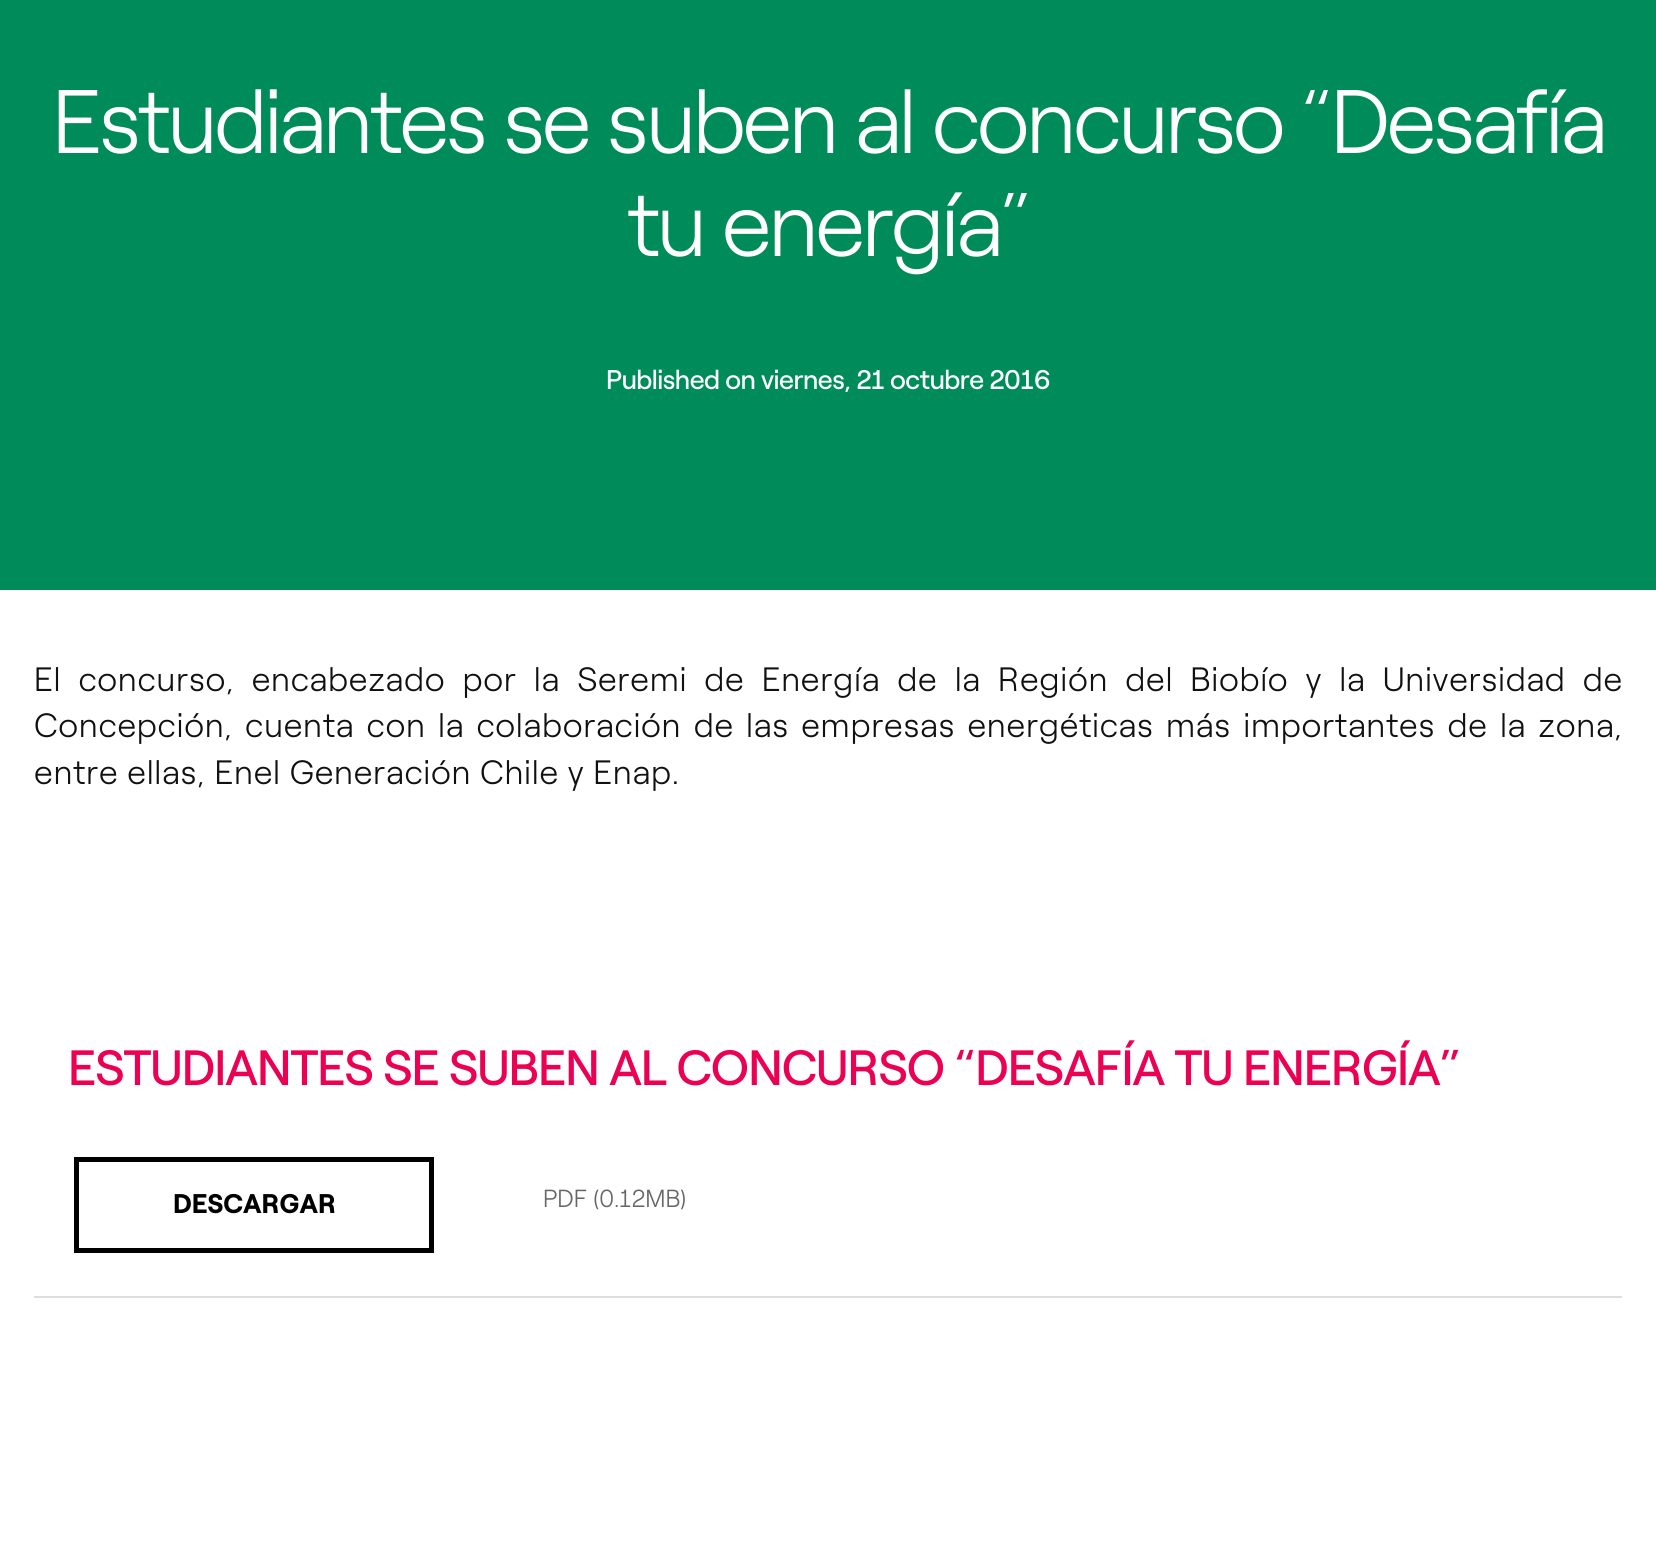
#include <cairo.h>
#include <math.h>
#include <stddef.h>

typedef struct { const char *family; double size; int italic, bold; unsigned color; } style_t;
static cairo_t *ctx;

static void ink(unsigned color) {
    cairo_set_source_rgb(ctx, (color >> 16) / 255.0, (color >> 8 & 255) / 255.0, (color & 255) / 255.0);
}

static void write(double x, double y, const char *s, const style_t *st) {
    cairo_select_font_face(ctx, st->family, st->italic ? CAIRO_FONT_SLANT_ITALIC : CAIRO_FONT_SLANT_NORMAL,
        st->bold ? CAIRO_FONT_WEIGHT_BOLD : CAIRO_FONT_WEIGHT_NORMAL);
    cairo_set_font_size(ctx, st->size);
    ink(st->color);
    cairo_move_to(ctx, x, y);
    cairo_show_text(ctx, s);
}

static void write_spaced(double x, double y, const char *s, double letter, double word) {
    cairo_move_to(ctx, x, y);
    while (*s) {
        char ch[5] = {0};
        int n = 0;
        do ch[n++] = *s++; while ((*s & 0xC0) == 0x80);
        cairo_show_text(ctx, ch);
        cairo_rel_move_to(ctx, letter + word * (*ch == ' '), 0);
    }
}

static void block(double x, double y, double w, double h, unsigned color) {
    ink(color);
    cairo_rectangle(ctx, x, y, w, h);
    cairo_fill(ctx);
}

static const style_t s1 = {"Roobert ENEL", 27, 0, 1, 0x000000};
static const style_t s2 = {"Roobert ENEL Light", 24.75, 0, 0, 0x666666};

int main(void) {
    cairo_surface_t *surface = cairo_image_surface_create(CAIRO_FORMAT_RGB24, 1656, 1545);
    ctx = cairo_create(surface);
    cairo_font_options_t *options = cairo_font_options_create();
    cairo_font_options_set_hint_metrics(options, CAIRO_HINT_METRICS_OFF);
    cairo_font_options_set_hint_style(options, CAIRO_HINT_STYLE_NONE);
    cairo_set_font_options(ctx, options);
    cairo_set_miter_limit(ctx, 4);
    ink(0xffffff);
    cairo_paint(ctx);
    block(0, 0, 1656, 590, 0x008c5a);
    cairo_select_font_face(ctx, "Roobert ENEL Light", CAIRO_FONT_SLANT_NORMAL, CAIRO_FONT_WEIGHT_NORMAL);
    cairo_set_font_size(ctx, 90);
    ink(0xffffff);
    write_spaced(52, 153, "Estudiantes se suben al concurso “Desafía", -3.6, 0);
    write_spaced(627, 256, "tu energía”", -3.6, 0);
    cairo_select_font_face(ctx, "Roobert ENEL", CAIRO_FONT_SLANT_NORMAL, CAIRO_FONT_WEIGHT_NORMAL);
    cairo_set_font_size(ctx, 27);
    write_spaced(606, 389, "Published on viernes, 21 octubre 2016", -0.55, 0);
    cairo_select_font_face(ctx, "Roobert ENEL Light", CAIRO_FONT_SLANT_NORMAL, CAIRO_FONT_WEIGHT_NORMAL);
    cairo_set_font_size(ctx, 33.75);
    ink(0x111111);
    write_spaced(34, 691, "El concurso, encabezado por la Seremi de Energía de la Región del Biobío y la Universidad de", 0.67, 8.25);
    write_spaced(34, 737, "Concepción, cuenta con la colaboración de las empresas energéticas más importantes de la zona,", 0.67, 3.4);
    write_spaced(34, 784, "entre ellas, Enel Generación Chile y Enap.", 0.67, 0);
    block(34, 1296, 1588, 2, 0xdddddd);
    cairo_select_font_face(ctx, "Roobert ENEL", CAIRO_FONT_SLANT_NORMAL, CAIRO_FONT_WEIGHT_NORMAL);
    cairo_set_font_size(ctx, 49.5);
    ink(0xeb0053);
    write_spaced(68, 1085, "ESTUDIANTES SE SUBEN AL CONCURSO “DESAFÍA TU ENERGÍA”", -1, 0);
    cairo_rectangle(ctx, 76.5, 1159.5, 355, 91);
    ink(0x000000);
    cairo_set_line_width(ctx, 5);
    cairo_stroke(ctx);
    write(173, 1213, "DESCARGAR", &s1);
    write(543, 1207, "PDF (0.12MB)", &s2);
    cairo_surface_write_to_png(surface, "screenshot.png");
    cairo_font_options_destroy(options);
    cairo_destroy(ctx);
    cairo_surface_destroy(surface);
    return 0;
}
